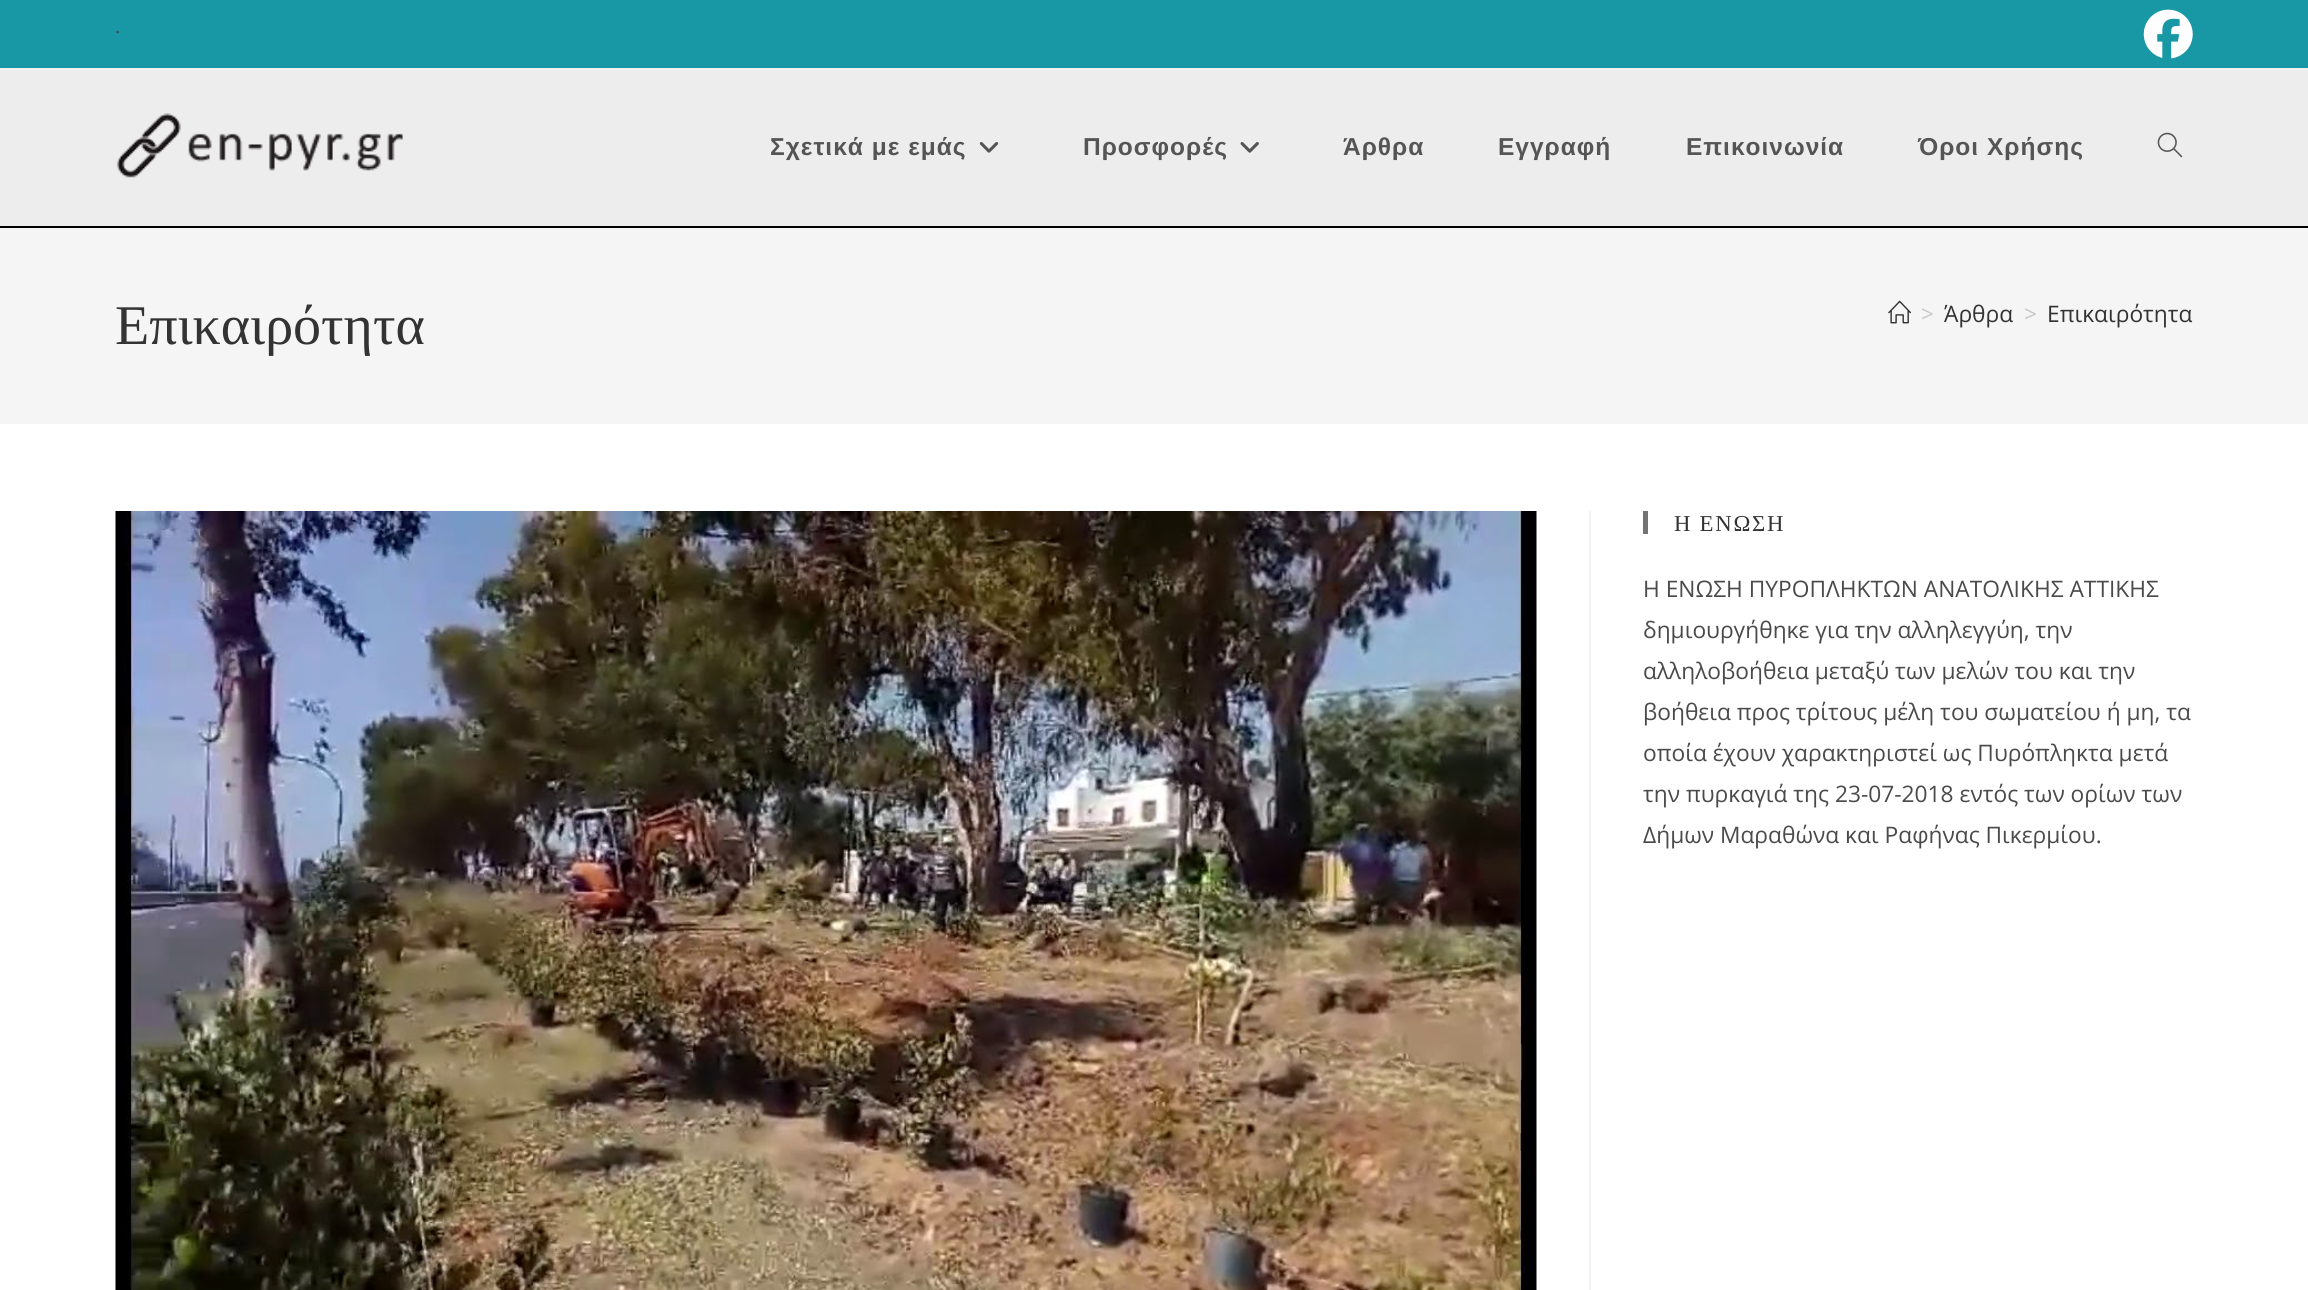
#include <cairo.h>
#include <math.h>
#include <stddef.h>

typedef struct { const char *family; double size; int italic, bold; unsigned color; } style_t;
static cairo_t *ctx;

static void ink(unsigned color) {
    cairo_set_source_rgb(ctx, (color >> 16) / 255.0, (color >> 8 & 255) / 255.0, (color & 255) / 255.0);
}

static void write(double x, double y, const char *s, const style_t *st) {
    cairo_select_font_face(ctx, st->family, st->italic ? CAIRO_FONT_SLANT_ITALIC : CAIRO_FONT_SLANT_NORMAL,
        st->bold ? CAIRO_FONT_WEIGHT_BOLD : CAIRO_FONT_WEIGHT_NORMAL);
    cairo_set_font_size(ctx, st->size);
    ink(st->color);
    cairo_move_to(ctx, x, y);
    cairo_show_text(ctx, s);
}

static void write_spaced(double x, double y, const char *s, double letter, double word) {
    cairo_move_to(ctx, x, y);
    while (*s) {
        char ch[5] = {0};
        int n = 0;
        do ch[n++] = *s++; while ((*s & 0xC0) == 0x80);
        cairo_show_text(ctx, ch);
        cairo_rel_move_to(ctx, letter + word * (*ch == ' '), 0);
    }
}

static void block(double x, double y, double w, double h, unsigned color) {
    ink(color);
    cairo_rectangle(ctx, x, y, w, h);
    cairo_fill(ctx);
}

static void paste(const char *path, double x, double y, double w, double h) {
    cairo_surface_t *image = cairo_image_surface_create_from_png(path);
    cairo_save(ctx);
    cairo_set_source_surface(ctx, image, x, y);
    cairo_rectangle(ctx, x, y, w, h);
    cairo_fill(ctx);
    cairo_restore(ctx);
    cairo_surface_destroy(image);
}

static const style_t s1 = {"Liberation Serif", 21, 0, 0, 0x4a4a4a};
static const style_t s2 = {"Liberation Serif", 56, 0, 0, 0x333333};
static const style_t s3 = {"Open Sans", 22.75, 0, 0, 0xc6c6c6};
static const style_t s4 = {"Open Sans", 22.75, 0, 0, 0x333333};
static const style_t s5 = {"Open Sans", 22.75, 0, 0, 0x4a4a4a};

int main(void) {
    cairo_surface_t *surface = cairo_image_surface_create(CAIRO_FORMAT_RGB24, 2308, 1290);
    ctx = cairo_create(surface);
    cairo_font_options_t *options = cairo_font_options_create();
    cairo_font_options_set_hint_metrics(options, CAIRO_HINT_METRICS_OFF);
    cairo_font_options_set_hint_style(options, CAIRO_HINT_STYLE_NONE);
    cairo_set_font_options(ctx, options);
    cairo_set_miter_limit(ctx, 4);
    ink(0xffffff);
    cairo_paint(ctx);
    block(0, 0, 2308, 68, 0x1897a5);
    block(0, 68, 2308, 2, 0xf1f1f1);
    write(115, 33, ".", &s1);
    paste("pic1.png", 2143, 9, 50, 50);
    block(0, 70, 2308, 156, 0xededed);
    block(0, 226, 2308, 2, 0x000000);
    paste("pic2.png", 116, 113, 287, 65);
    cairo_select_font_face(ctx, "Liberation Sans", CAIRO_FONT_SLANT_NORMAL, CAIRO_FONT_WEIGHT_BOLD);
    cairo_set_font_size(ctx, 24.5);
    ink(0x555555);
    write_spaced(770, 155, "Σχετικά με εμάς", 1, 0);
    paste("pic3.png", 979, 142, 20, 11);
    write_spaced(1083, 155, "Προσφορές", 1, 0);
    paste("pic4.png", 1240, 142, 19, 11);
    write_spaced(1343, 155, "Άρθρα", 1, 0);
    write_spaced(1498, 155, "Εγγραφή", 1, 0);
    write_spaced(1686, 155, "Επικοινωνία", 1, 0);
    write_spaced(1918, 155, "Όροι Χρήσης", 1, 0);
    paste("pic5.png", 2157, 132, 26, 26);
    block(0, 228, 2308, 196, 0xf5f5f5);
    write(115, 344, "Επικαιρότητα", &s2);
    paste("pic6.png", 1888, 300, 23, 24);
    write(1921, 322, ">", &s3);
    write(1944, 322, "Άρθρα", &s4);
    write(2024, 322, ">", &s3);
    write(2047, 322, "Επικαιρότητα", &s4);
    block(1589, 511, 2, 779, 0xf1f1f1);
    paste("pic7.png", 115, 511, 1422, 779);
    block(1643, 511, 5, 23, 0x757371);
    cairo_select_font_face(ctx, "Liberation Serif", CAIRO_FONT_SLANT_NORMAL, CAIRO_FONT_WEIGHT_NORMAL);
    ink(0x333333);
    write_spaced(1674, 531, "Η ΕΝΩΣΗ", 1.75, 0);
    write(1643, 597, "H ΕΝΩΣΗ ΠΥΡΟΠΛΗΚΤΩΝ ΑΝΑΤΟΛΙΚΗΣ ΑΤΤΙΚΗΣ", &s5);
    write(1643, 638, "δημιουργήθηκε για την αλληλεγγύη, την", &s5);
    write(1643, 679, "αλληλοβοήθεια μεταξύ των μελών του και την", &s5);
    write(1643, 720, "βοήθεια προς τρίτους μέλη του σωματείου ή μη, τα", &s5);
    write(1643, 761, "οποία έχουν χαρακτηριστεί ως Πυρόπληκτα μετά", &s5);
    write(1643, 802, "την πυρκαγιά της 23-07-2018 εντός των ορίων των", &s5);
    write(1643, 843, "Δήμων Μαραθώνα και Ραφήνας Πικερμίου.", &s5);
    cairo_surface_write_to_png(surface, "screenshot.png");
    cairo_font_options_destroy(options);
    cairo_destroy(ctx);
    cairo_surface_destroy(surface);
    return 0;
}
